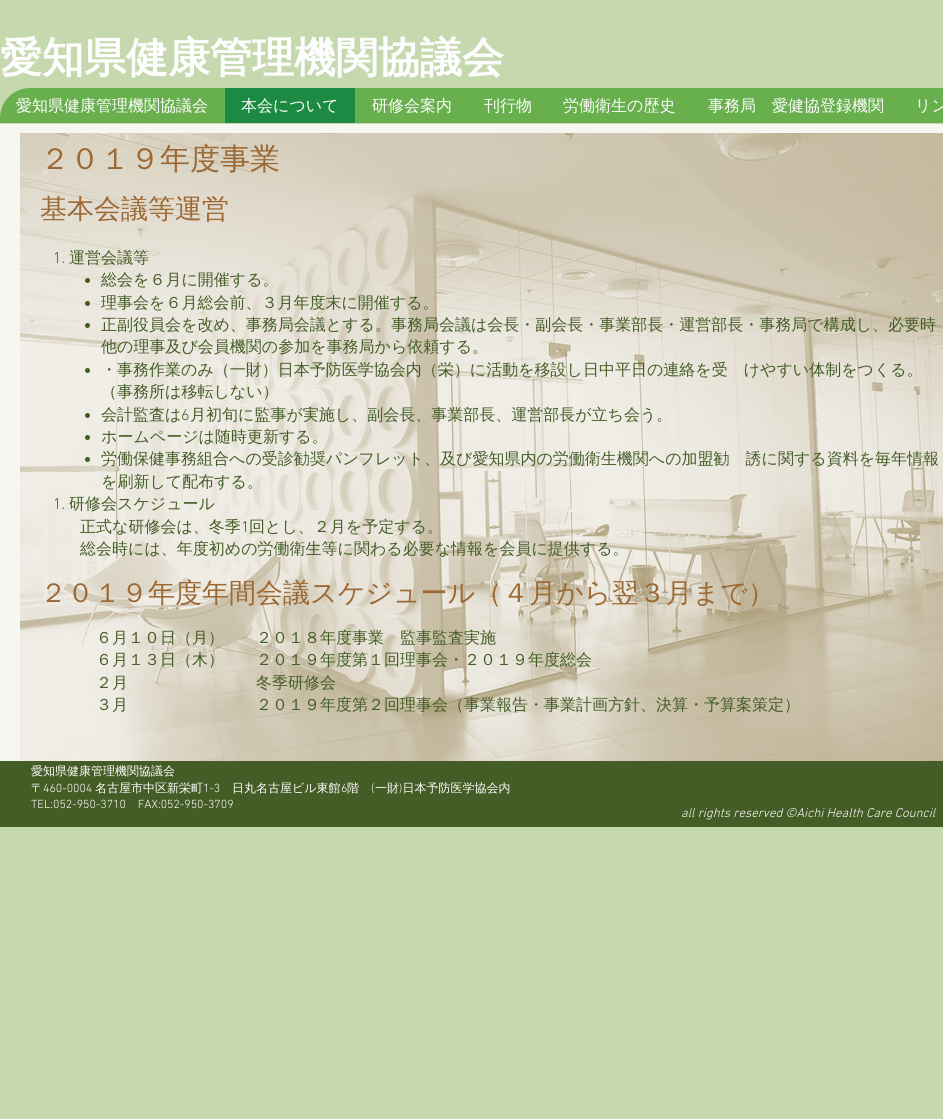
#include <cairo.h>
#include <math.h>
#include <stddef.h>

typedef struct { const char *family; double size; int italic, bold; unsigned color; } style_t;
static cairo_t *ctx;

static void ink(unsigned color) {
    cairo_set_source_rgb(ctx, (color >> 16) / 255.0, (color >> 8 & 255) / 255.0, (color & 255) / 255.0);
}

static void write(double x, double y, const char *s, const style_t *st) {
    cairo_select_font_face(ctx, st->family, st->italic ? CAIRO_FONT_SLANT_ITALIC : CAIRO_FONT_SLANT_NORMAL,
        st->bold ? CAIRO_FONT_WEIGHT_BOLD : CAIRO_FONT_WEIGHT_NORMAL);
    cairo_set_font_size(ctx, st->size);
    ink(st->color);
    cairo_move_to(ctx, x, y);
    cairo_show_text(ctx, s);
}

static void block(double x, double y, double w, double h, unsigned color) {
    ink(color);
    cairo_rectangle(ctx, x, y, w, h);
    cairo_fill(ctx);
}

static void paste(const char *path, double x, double y, double w, double h) {
    cairo_surface_t *image = cairo_image_surface_create_from_png(path);
    cairo_save(ctx);
    cairo_set_source_surface(ctx, image, x, y);
    cairo_rectangle(ctx, x, y, w, h);
    cairo_fill(ctx);
    cairo_restore(ctx);
    cairo_surface_destroy(image);
}

static const style_t s1 = {"WenQuanYi Zen Hei", 42, 0, 1, 0xfefdfd};
static const style_t s2 = {"WenQuanYi Zen Hei Medium", 16, 0, 0, 0xfefdfd};
static const style_t s3 = {"WenQuanYi Zen Hei Medium", 30, 0, 0, 0x9c6833};
static const style_t s4 = {"WenQuanYi Zen Hei Medium", 27, 0, 0, 0x9c6833};
static const style_t s5 = {"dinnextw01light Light", 16, 0, 0, 0x445d26};
static const style_t s6 = {"WenQuanYi Zen Hei Medium", 16, 0, 0, 0x445d26};
static const style_t s7 = {"WenQuanYi Zen Hei Medium", 12, 0, 0, 0xfefdfd};
static const style_t s8 = {"dinnextw01light Light", 12, 0, 0, 0xfefdfd};
static const style_t s9 = {"dinnextw01light Light", 13, 1, 0, 0xfefdfd};

int main(void) {
    cairo_surface_t *surface = cairo_image_surface_create(CAIRO_FORMAT_RGB24, 943, 1119);
    ctx = cairo_create(surface);
    cairo_font_options_t *options = cairo_font_options_create();
    cairo_font_options_set_hint_metrics(options, CAIRO_HINT_METRICS_OFF);
    cairo_font_options_set_hint_style(options, CAIRO_HINT_STYLE_NONE);
    cairo_set_font_options(ctx, options);
    cairo_set_miter_limit(ctx, 4);
    ink(0xc5d8ae);
    cairo_paint(ctx);
    write(0, 72, "愛知県健康管理機関協議会", &s1);
    ink(0x68b04d);
    cairo_new_path(ctx);
    cairo_move_to(ctx, 30, 88);
    cairo_line_to(ctx, 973, 88);
    cairo_line_to(ctx, 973, 93);
    cairo_curve_to(ctx, 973, 109.5, 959.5, 123, 943, 123);
    cairo_line_to(ctx, 0, 123);
    cairo_line_to(ctx, 0, 118);
    cairo_curve_to(ctx, 0, 101.5, 13.5, 88, 30, 88);
    cairo_close_path(ctx);
    cairo_fill(ctx);
    write(16, 111, "愛知県健康管理機関協議会", &s2);
    block(225, 88, 130, 35, 0x1c8a43);
    write(241, 111, "本会について", &s2);
    write(372, 111, "研修会案内", &s2);
    write(484, 111, "刊行物", &s2);
    write(563, 111, "労働衛生の歴史", &s2);
    write(708, 111, "事務局　愛健協登録機関", &s2);
    write(915, 111, "リン", &s2);
    block(0, 124, 943, 637, 0xf6f7f1);
    paste("pic1.png", 20, 133, 923, 628);
    write(40, 169, "２０１９年度事業", &s3);
    write(40, 218, "基本会議等運営", &s4);
    write(53, 263, "1.", &s5);
    write(69, 263, "運営会議等", &s6);
    cairo_new_path(ctx);
    cairo_arc(ctx, 87.5, 280.5, 2.5, 0, 2 * M_PI);
    cairo_fill(ctx);
    write(101, 285, "総会を６月に開催する。", &s6);
    cairo_new_path(ctx);
    cairo_arc(ctx, 87.5, 303.5, 2.5, 0, 2 * M_PI);
    cairo_fill(ctx);
    write(101, 308, "理事会を６月総会前、３月年度末に開催する。", &s6);
    cairo_new_path(ctx);
    cairo_arc(ctx, 87.5, 325.5, 2.5, 0, 2 * M_PI);
    cairo_fill(ctx);
    write(101, 330, "正副役員会を改め、事務局会議とする。事務局会議は会長・副会長・事業部長・運営部長・事務局で構成し、必要時", &s6);
    write(101, 352, "他の理事及び会員機関の参加を事務局から依頼する。", &s6);
    cairo_new_path(ctx);
    cairo_arc(ctx, 87.5, 370.5, 2.5, 0, 2 * M_PI);
    cairo_fill(ctx);
    write(101, 375, "・事務作業のみ（一財）日本予防医学協会内（栄）に活動を移設し日中平日の連絡を受　けやすい体制をつくる。", &s6);
    write(101, 397, "（事務所は移転しない）", &s6);
    cairo_new_path(ctx);
    cairo_arc(ctx, 87.5, 415.5, 2.5, 0, 2 * M_PI);
    cairo_fill(ctx);
    write(101, 420, "会計監査は", &s6);
    write(181, 420, "6", &s5);
    write(190, 420, "月初旬に監事が実施し、副会長、事業部長、運営部長が立ち会う。", &s6);
    cairo_new_path(ctx);
    cairo_arc(ctx, 87.5, 437.5, 2.5, 0, 2 * M_PI);
    cairo_fill(ctx);
    write(101, 442, "ホームページは随時更新する。", &s6);
    cairo_new_path(ctx);
    cairo_arc(ctx, 87.5, 459.5, 2.5, 0, 2 * M_PI);
    cairo_fill(ctx);
    write(101, 464, "労働保健事務組合への受診勧奨パンフレット、及び愛知県内の労働衛生機関への加盟勧　誘に関する資料を毎年情報", &s6);
    write(101, 487, "を刷新して配布する。", &s6);
    write(53, 509, "1.", &s5);
    write(69, 509, "研修会スケジュール", &s6);
    write(80, 532, "正式な研修会は、冬季", &s6);
    write(241, 532, "1", &s5);
    write(249, 532, "回とし、２月を予定する。", &s6);
    write(80, 554, "総会時には、年度初めの労働衛生等に関わる必要な情報を会員に提供する。", &s6);
    write(40, 602, "２０１９年度年間会議スケジュール（４月から翌３月まで）", &s4);
    write(96, 643, "６月１０日（月）　　２０１８年度事業　監事監査実施", &s6);
    write(96, 665, "６月１３日（木）　　２０１９年度第１回理事会・２０１９年度総会", &s6);
    write(96, 688, "２月　　　　　　　　冬季研修会", &s6);
    write(96, 710, "３月　　　　　　　　２０１９年度第２回理事会（事業報告・事業計画方針、決算・予算案策定）", &s6);
    block(0, 761, 943, 66, 0x445d26);
    write(31, 775, "愛知県健康管理機関協議会", &s7);
    write(31, 792, "〒", &s7);
    write(43, 792, "460-0004", &s8);
    write(95, 792, "名古屋市中区新栄町", &s7);
    write(203, 792, "1-3", &s8);
    write(232, 792, "日丸名古屋ビル東館", &s7);
    write(341, 792, "6", &s8);
    write(347, 792, "階", &s7);
    write(371, 792, "(", &s8);
    write(375, 792, "一財 日本予防医学協会内", &s7);
    write(399, 792, ")", &s8);
    write(31, 808, "TEL:052-950-3710    FAX:052-950-3709", &s8);
    write(681, 817, "all rights reserved ©Aichi Health Care Council", &s9);
    cairo_surface_write_to_png(surface, "screenshot.png");
    cairo_font_options_destroy(options);
    cairo_destroy(ctx);
    cairo_surface_destroy(surface);
    return 0;
}
